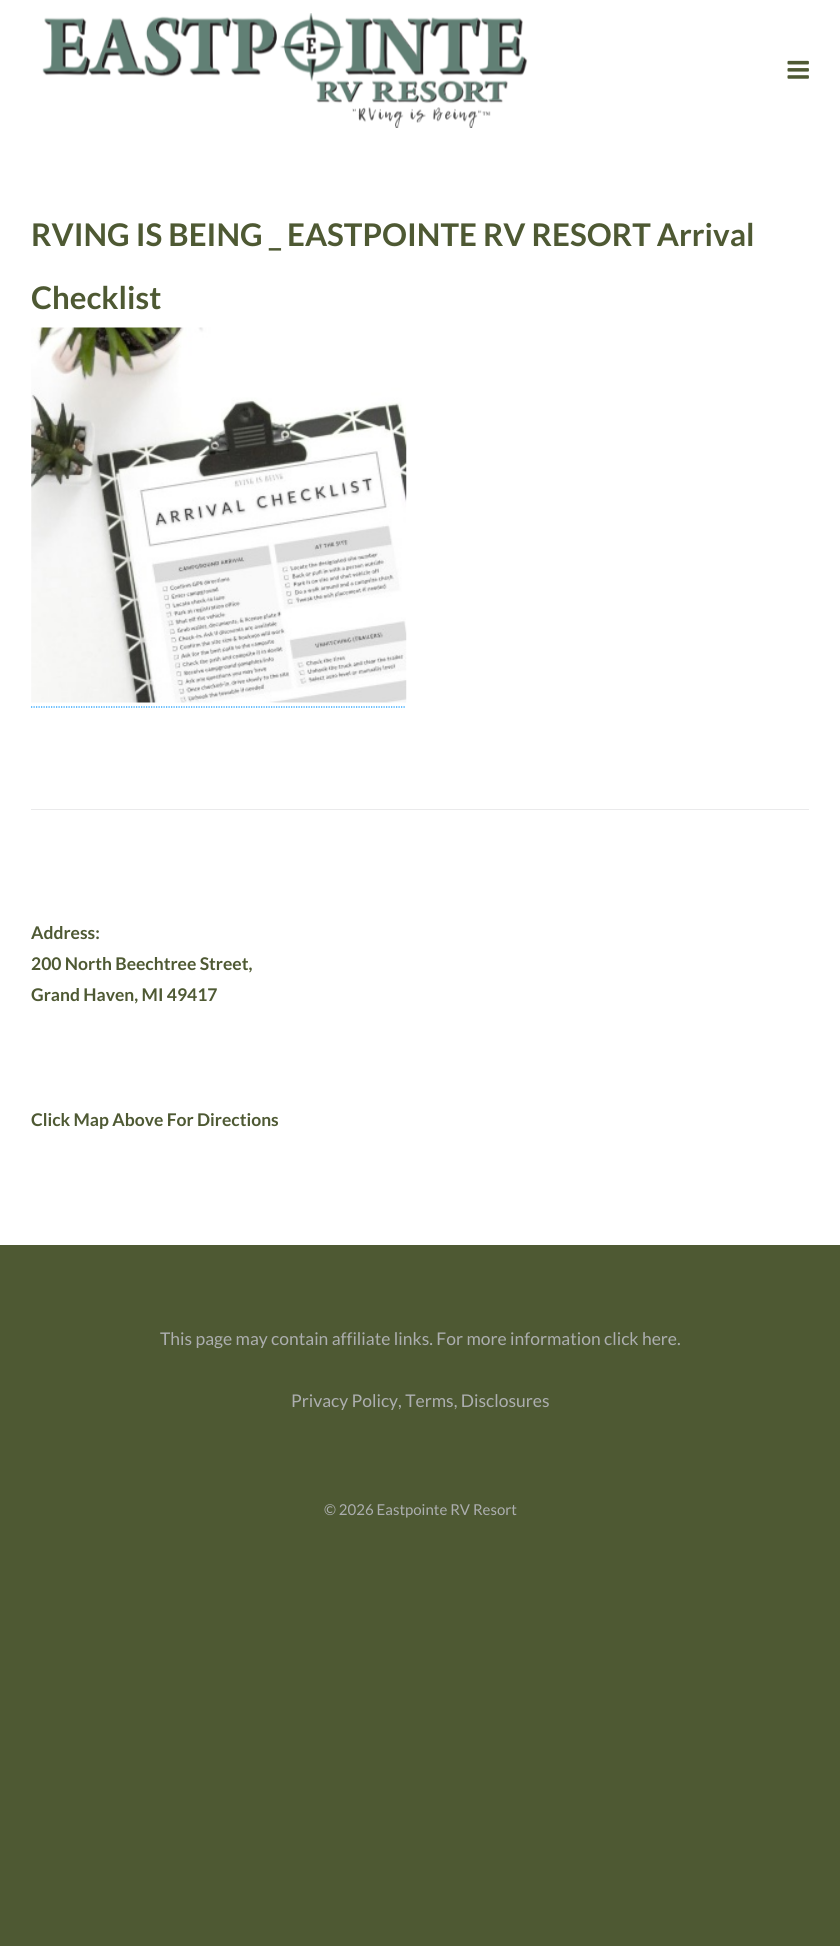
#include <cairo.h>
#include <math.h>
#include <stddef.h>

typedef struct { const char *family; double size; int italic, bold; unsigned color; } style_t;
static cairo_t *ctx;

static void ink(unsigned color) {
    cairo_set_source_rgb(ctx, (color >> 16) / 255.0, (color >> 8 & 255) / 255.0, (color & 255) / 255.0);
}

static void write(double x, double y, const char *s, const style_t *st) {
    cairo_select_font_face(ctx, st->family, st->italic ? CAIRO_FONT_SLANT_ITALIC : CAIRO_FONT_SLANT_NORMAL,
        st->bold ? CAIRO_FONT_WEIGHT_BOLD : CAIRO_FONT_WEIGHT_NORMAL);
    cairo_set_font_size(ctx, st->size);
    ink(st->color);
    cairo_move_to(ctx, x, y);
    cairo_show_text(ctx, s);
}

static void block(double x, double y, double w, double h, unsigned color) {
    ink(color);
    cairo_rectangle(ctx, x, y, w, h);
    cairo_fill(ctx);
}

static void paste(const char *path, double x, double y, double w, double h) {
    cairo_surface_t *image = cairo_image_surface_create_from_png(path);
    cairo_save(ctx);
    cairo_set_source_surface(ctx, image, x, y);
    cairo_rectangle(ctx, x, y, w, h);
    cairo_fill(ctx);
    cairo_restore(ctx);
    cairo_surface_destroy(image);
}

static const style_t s1 = {"Lato", 31.25, 0, 1, 0x4e5933};
static const style_t s2 = {"Lato", 17.5, 0, 1, 0x4e5933};
static const style_t s3 = {"Lato", 17.5, 0, 0, 0xacaeaf};
static const style_t s4 = {"Lato", 15, 0, 0, 0xacaeaf};

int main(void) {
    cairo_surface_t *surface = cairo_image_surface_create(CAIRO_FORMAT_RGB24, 840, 1946);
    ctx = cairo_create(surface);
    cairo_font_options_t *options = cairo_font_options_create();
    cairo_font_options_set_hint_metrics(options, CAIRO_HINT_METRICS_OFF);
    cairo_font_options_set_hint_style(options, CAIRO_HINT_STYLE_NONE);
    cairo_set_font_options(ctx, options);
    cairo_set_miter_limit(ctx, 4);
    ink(0x4e5933);
    cairo_paint(ctx);
    block(0, 0, 840, 1245, 0xffffff);
    paste("pic1.png", 42, 13, 486, 115);
    paste("pic2.png", 787, 60, 22, 19);
    write(31, 246, "RVING IS BEING _ EASTPOINTE RV RESORT Arrival", &s1);
    write(31, 309, "Checklist", &s1);
    paste("pic3.png", 31, 327, 376, 376);
    cairo_new_path(ctx);
    cairo_move_to(ctx, 31, 707);
    cairo_line_to(ctx, 406, 707);
    ink(0x0896fe);
    cairo_set_line_width(ctx, 1.2);
    cairo_set_dash(ctx, (double[]){1.25, 1.25}, 2, 0);
    cairo_stroke(ctx);
    block(31, 809, 778, 1, 0xeaeaeb);
    write(31, 939, "Address:", &s2);
    write(31, 970, "200 North Beechtree Street,", &s2);
    write(31, 1001, "Grand Haven, MI 49417", &s2);
    write(31, 1126, "Click Map Above For Directions", &s2);
    write(160, 1345, "This page may contain affiliate links. For more information click here.", &s3);
    write(291, 1407, "Privacy Policy, Terms, Disclosures", &s3);
    write(324, 1515, "© 2026 Eastpointe RV Resort", &s4);
    cairo_surface_write_to_png(surface, "screenshot.png");
    cairo_font_options_destroy(options);
    cairo_destroy(ctx);
    cairo_surface_destroy(surface);
    return 0;
}
